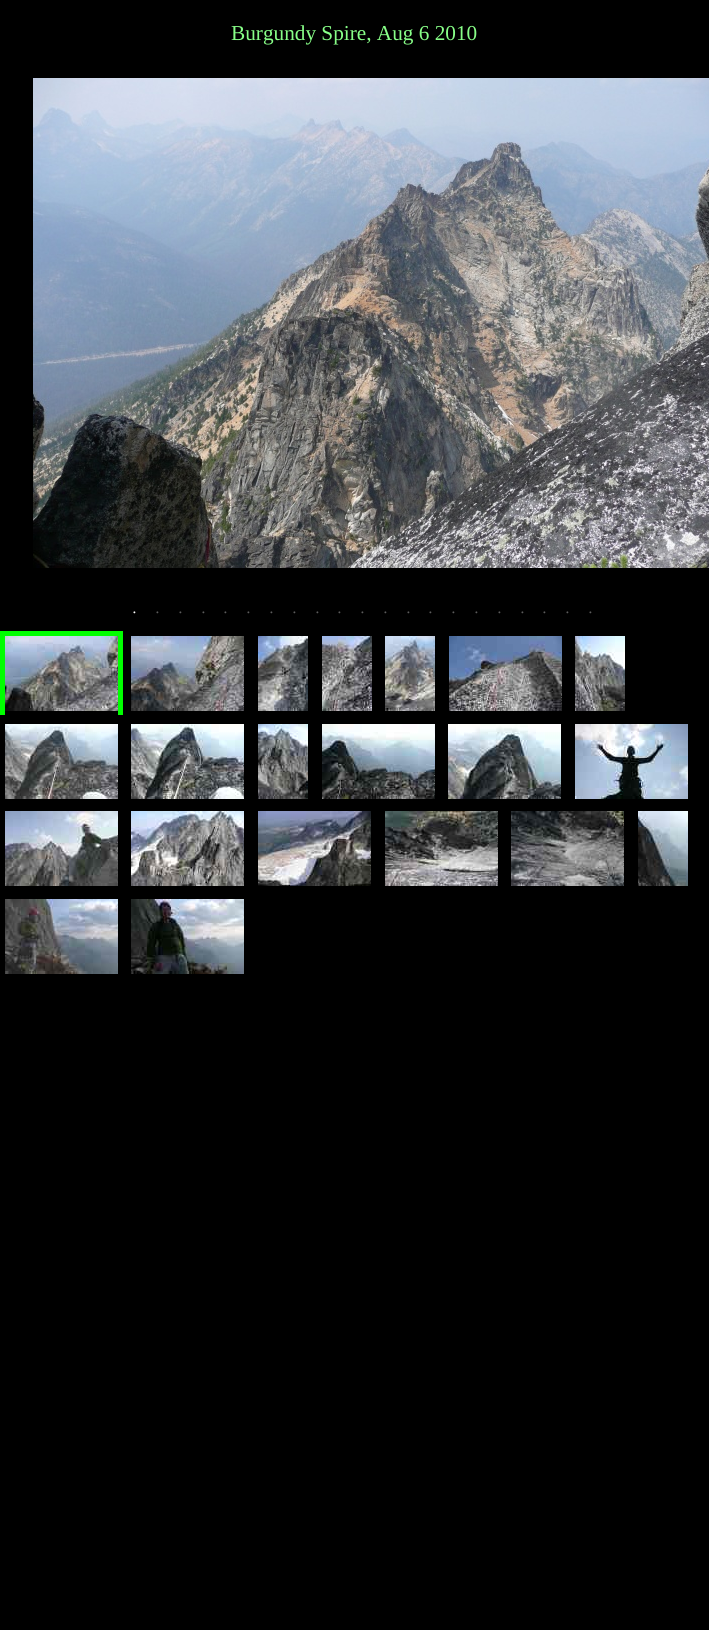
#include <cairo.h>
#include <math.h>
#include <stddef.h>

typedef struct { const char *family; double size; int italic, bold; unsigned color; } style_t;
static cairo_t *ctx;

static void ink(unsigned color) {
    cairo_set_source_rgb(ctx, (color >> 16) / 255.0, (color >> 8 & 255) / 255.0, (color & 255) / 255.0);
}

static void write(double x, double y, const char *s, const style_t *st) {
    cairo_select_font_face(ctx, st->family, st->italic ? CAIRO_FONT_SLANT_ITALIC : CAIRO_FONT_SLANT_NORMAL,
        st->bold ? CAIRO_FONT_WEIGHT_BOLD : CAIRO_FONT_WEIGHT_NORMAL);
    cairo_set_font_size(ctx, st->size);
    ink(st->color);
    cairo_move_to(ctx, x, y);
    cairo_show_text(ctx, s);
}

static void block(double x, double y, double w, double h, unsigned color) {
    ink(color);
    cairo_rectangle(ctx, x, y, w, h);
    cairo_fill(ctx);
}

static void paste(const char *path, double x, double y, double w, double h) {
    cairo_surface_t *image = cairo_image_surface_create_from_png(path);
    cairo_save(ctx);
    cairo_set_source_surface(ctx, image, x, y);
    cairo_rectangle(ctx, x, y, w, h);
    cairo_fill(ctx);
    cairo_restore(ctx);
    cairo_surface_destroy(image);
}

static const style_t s1 = {"Liberation Serif", 21.25, 0, 0, 0x88ff88};
static const style_t s2 = {"Liberation Serif", 8, 0, 0, 0xffffff};
static const style_t s3 = {"Liberation Serif", 8, 0, 0, 0x5c5c5c};

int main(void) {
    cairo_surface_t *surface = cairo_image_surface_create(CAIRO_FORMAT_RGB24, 709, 1630);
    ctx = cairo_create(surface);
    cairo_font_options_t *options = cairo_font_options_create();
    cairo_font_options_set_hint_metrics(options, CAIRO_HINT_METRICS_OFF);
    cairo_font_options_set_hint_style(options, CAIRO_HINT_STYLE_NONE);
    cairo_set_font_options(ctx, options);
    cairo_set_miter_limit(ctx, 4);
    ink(0x000000);
    cairo_paint(ctx);
    write(231, 40, "Burgundy Spire, Aug 6 2010", &s1);
    paste("pic1.png", 33, 78, 676, 490);
    write(133, 615, "•", &s2);
    write(156, 615, "•", &s3);
    write(179, 615, "•", &s3);
    write(202, 615, "•", &s3);
    write(224, 615, "•", &s3);
    write(247, 615, "•", &s3);
    write(270, 615, "•", &s3);
    write(293, 615, "•", &s3);
    write(316, 615, "•", &s3);
    write(338, 615, "•", &s3);
    write(361, 615, "•", &s3);
    write(384, 615, "•", &s3);
    write(407, 615, "•", &s3);
    write(429, 615, "•", &s3);
    write(452, 615, "•", &s3);
    write(475, 615, "•", &s3);
    write(498, 615, "•", &s3);
    write(521, 615, "•", &s3);
    write(543, 615, "•", &s3);
    write(566, 615, "•", &s3);
    write(589, 615, "•", &s3);
    block(0, 631, 123, 84, 0x00ff00);
    paste("pic2.png", 5, 636, 113, 75);
    block(5, 711, 113, 4, 0x000000);
    paste("pic3.png", 131, 636, 113, 75);
    paste("pic4.png", 258, 636, 50, 75);
    paste("pic5.png", 322, 636, 50, 75);
    paste("pic6.png", 385, 636, 50, 75);
    paste("pic7.png", 449, 636, 113, 75);
    paste("pic8.png", 575, 636, 50, 75);
    paste("pic9.png", 5, 724, 113, 75);
    paste("pic10.png", 131, 724, 113, 75);
    paste("pic11.png", 258, 724, 50, 75);
    paste("pic12.png", 322, 724, 113, 75);
    paste("pic13.png", 448, 724, 113, 75);
    paste("pic14.png", 575, 724, 113, 75);
    paste("pic15.png", 5, 811, 113, 75);
    paste("pic16.png", 131, 811, 113, 75);
    paste("pic17.png", 258, 811, 113, 75);
    paste("pic18.png", 385, 811, 113, 75);
    paste("pic19.png", 511, 811, 113, 75);
    paste("pic20.png", 638, 811, 50, 75);
    paste("pic21.png", 5, 899, 113, 75);
    paste("pic22.png", 131, 899, 113, 75);
    cairo_surface_write_to_png(surface, "screenshot.png");
    cairo_font_options_destroy(options);
    cairo_destroy(ctx);
    cairo_surface_destroy(surface);
    return 0;
}
